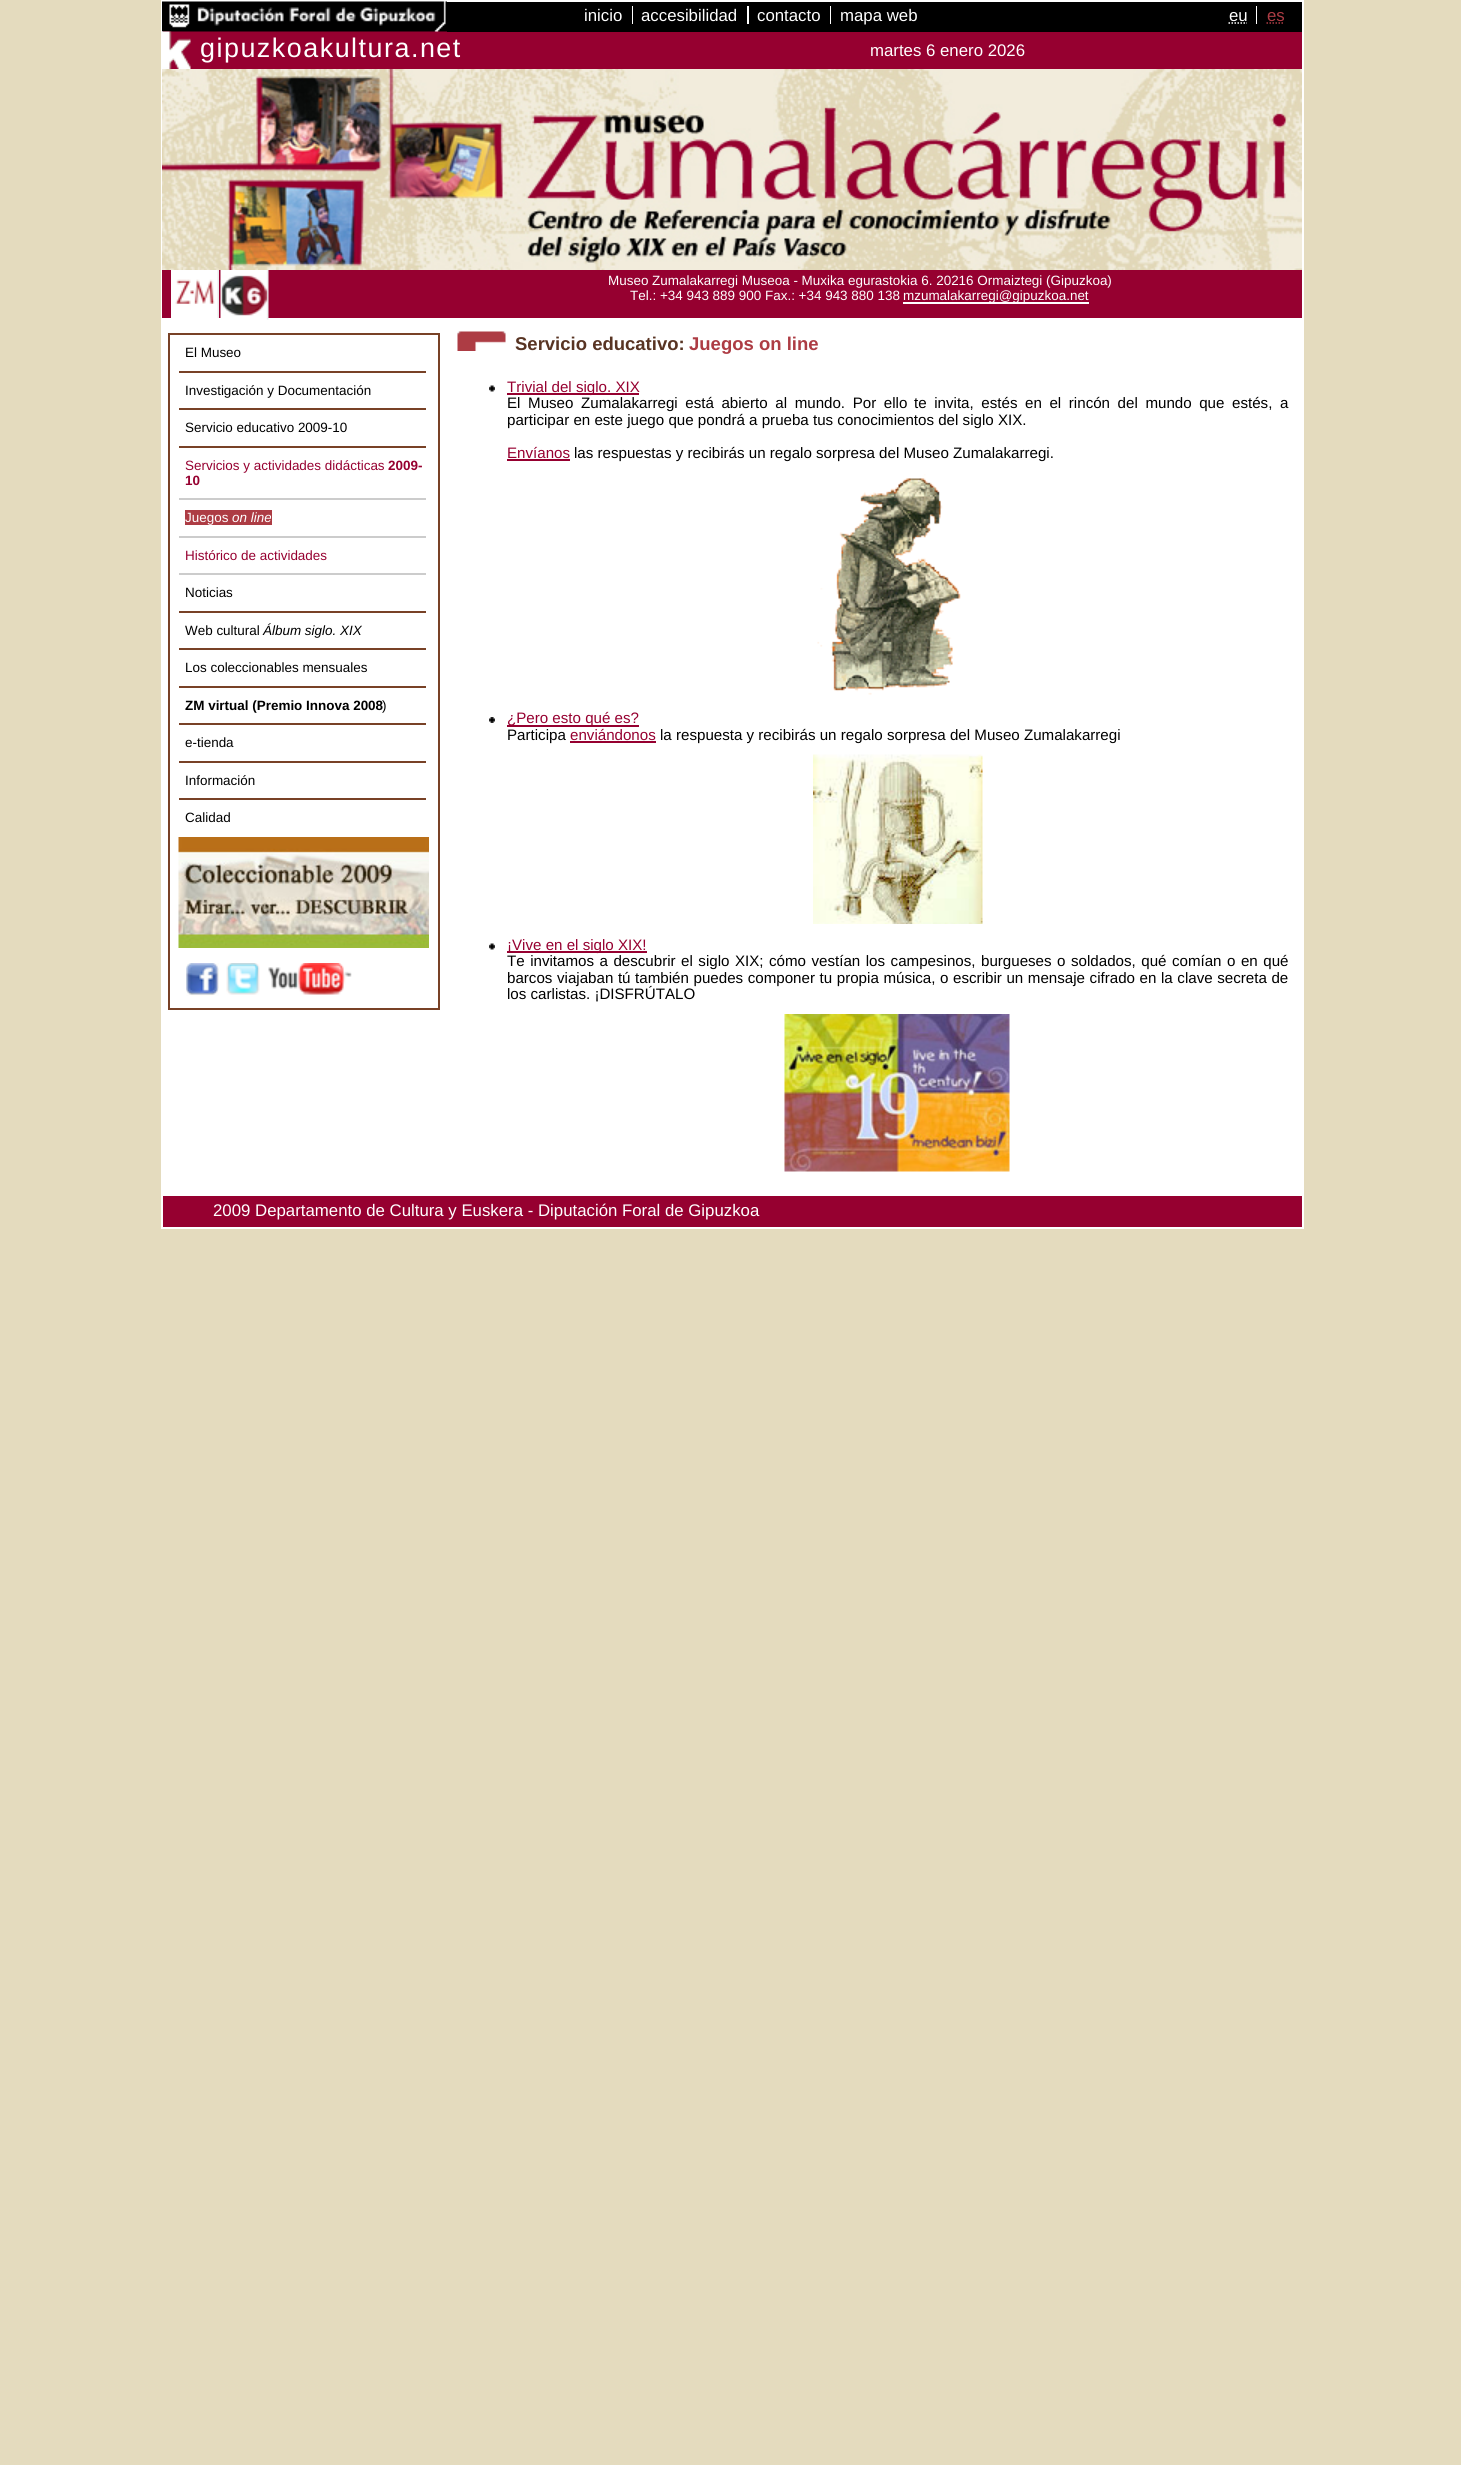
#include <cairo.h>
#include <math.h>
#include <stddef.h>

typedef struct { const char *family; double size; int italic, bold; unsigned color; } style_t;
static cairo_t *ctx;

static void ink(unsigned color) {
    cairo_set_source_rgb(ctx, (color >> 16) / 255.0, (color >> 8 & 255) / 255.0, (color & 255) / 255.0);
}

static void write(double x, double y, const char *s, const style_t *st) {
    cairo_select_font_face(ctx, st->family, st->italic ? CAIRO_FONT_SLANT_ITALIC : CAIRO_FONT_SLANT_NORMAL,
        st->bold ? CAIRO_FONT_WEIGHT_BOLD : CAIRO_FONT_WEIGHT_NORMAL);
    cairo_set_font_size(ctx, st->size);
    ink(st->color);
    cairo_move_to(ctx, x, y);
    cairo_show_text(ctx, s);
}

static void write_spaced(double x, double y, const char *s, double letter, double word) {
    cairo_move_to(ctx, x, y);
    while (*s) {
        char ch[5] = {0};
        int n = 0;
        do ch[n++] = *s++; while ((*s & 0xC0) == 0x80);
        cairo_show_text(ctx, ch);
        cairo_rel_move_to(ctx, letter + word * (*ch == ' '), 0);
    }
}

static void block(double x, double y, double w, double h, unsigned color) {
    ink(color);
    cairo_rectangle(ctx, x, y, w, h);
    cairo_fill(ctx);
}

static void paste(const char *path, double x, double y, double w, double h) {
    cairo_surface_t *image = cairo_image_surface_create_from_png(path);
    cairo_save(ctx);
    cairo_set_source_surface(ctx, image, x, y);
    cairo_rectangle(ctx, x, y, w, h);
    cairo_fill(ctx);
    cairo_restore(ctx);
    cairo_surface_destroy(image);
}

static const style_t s1 = {"Liberation Sans", 16.8, 0, 0, 0xffffff};
static const style_t s2 = {"Liberation Sans", 16.8, 0, 0, 0xad3c44};
static const style_t s3 = {"Liberation Sans", 13.45, 0, 0, 0xffffff};
static const style_t s4 = {"Liberation Sans", 18.5, 0, 1, 0x583423};
static const style_t s5 = {"Liberation Sans", 18.5, 0, 1, 0xad3c44};
static const style_t s6 = {"Liberation Sans", 13.45, 0, 0, 0x000000};
static const style_t s7 = {"Liberation Sans", 13.45, 0, 0, 0x960030};
static const style_t s8 = {"Liberation Sans", 13.45, 0, 1, 0x960030};
static const style_t s9 = {"Liberation Sans", 13.45, 1, 0, 0xffffff};
static const style_t s10 = {"Liberation Sans", 13.45, 1, 0, 0x000000};
static const style_t s11 = {"Liberation Sans", 13.45, 0, 1, 0x000000};
static const style_t s12 = {"Liberation Sans", 15.12, 0, 0, 0x960030};
static const style_t s13 = {"Liberation Sans", 15.12, 0, 0, 0x000000};

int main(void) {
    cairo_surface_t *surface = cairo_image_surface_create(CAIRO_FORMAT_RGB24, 1461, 2465);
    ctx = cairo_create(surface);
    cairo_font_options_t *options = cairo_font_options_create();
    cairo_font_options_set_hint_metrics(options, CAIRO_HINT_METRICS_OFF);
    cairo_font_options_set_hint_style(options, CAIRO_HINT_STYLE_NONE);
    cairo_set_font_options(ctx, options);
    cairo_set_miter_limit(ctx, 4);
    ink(0xe4dbbe);
    cairo_paint(ctx);
    block(161, 0, 1143, 2, 0xffffff);
    block(1302, 0, 2, 69, 0xffffff);
    block(161, 0, 2, 69, 0xffffff);
    block(163, 31, 1139, 38, 0x960030);
    paste("pic1.png", 162, 1, 285, 31);
    block(447, 2, 855, 30, 0x000000);
    block(632, 6, 1, 18, 0xffffff);
    write(584, 21, "inicio", &s1);
    block(747, 6, 2, 18, 0xffffff);
    write(641, 21, "accesibilidad", &s1);
    block(830, 6, 1, 18, 0xffffff);
    write(757, 21, "contacto", &s1);
    write(840, 21, "mapa web", &s1);
    block(1256, 6, 1, 18, 0xffffff);
    write(1229, 21, "eu", &s1);
    cairo_new_path(ctx);
    cairo_move_to(ctx, 1228.5, 23);
    cairo_line_to(ctx, 1247, 23);
    cairo_set_line_width(ctx, 1.5);
    cairo_set_dash(ctx, (double[]){1.5, 1.5}, 2, 0);
    cairo_stroke(ctx);
    write(1267, 21, "es", &s2);
    cairo_new_path(ctx);
    cairo_move_to(ctx, 1266.5, 23);
    cairo_line_to(ctx, 1284.5, 23);
    cairo_stroke(ctx);
    paste("pic2.png", 162, 31, 29, 38);
    cairo_set_font_size(ctx, 26.9);
    ink(0xffffff);
    write_spaced(200, 57, "gipuzkoakultura.net", 1.5, 0);
    write(870, 56, "martes 6 enero 2026", &s1);
    block(161, 69, 1143, 1127, 0xffffff);
    paste("pic3.png", 162, 69, 1140, 201);
    block(162, 270, 1140, 48, 0x960030);
    paste("pic4.png", 171, 270, 48, 48);
    paste("pic5.png", 220, 270, 49, 50);
    write(608, 285, "Museo Zumalakarregi Museoa - Muxika egurastokia 6. 20216 Ormaiztegi (Gipuzkoa)", &s3);
    write(630, 300, "Tel.: +34 943 889 900 Fax.: +34 943 880 138", &s3);
    block(903, 302, 186, 2, 0xffffff);
    write(903, 300, "mzumalakarregi@gipuzkoa.net", &s3);
    paste("pic6.png", 457, 331, 49, 20);
    write(515, 350, "Servicio educativo:", &s4);
    write(689, 350, "Juegos on line", &s5);
    cairo_rectangle(ctx, 169, 334, 270, 675);
    ink(0x784126);
    cairo_set_line_width(ctx, 2);
    cairo_set_dash(ctx, NULL, 0, 0);
    cairo_stroke(ctx);
    block(179, 371, 247, 2, 0x784126);
    write(185, 357, "El Museo", &s6);
    block(179, 408, 247, 2, 0x784126);
    write(185, 395, "Investigación y Documentación", &s6);
    block(179, 446, 247, 2, 0x784126);
    write(185, 432, "Servicio educativo 2009-10", &s6);
    block(179, 498, 247, 2, 0xcccccc);
    write(185, 470, "Servicios y actividades didácticas", &s7);
    write(388, 470, "2009-", &s8);
    write(185, 485, "10", &s8);
    block(179, 536, 247, 2, 0xcccccc);
    block(185, 510, 87, 15, 0xad3c44);
    write(185, 522, "Juegos", &s3);
    write(232, 522, "on line", &s9);
    block(179, 573, 247, 2, 0xcccccc);
    write(185, 560, "Histórico de actividades", &s7);
    block(179, 611, 247, 2, 0x784126);
    write(185, 597, "Noticias", &s6);
    block(179, 648, 247, 2, 0x784126);
    write(185, 635, "Web cultural", &s6);
    write(263, 635, "Álbum siglo. XIX", &s10);
    block(179, 686, 247, 2, 0x784126);
    write(185, 672, "Los coleccionables mensuales", &s6);
    block(179, 723, 247, 2, 0x784126);
    write(185, 710, "ZM virtual (Premio Innova 2008", &s11);
    write(382, 710, ")", &s6);
    block(179, 761, 247, 2, 0x784126);
    write(185, 747, "e-tienda", &s6);
    block(179, 798, 247, 2, 0x784126);
    write(185, 785, "Información", &s6);
    write(185, 822, "Calidad", &s6);
    paste("pic7.png", 178, 837, 251, 111);
    paste("pic8.png", 186, 963, 33, 33);
    paste("pic9.png", 226, 963, 34, 32);
    paste("pic10.png", 268, 963, 84, 32);
    paste("pic11.png", 489, 385, 6, 7);
    block(507, 393, 132, 2, 0x960030);
    write(507, 392, "Trivial del siglo. XIX", &s12);
    ink(0x000000);
    write_spaced(507, 408, "El Museo Zumalakarregi está abierto al mundo. Por ello", 0, 3.4);
    write_spaced(914, 408, "te invita, estés en el rincón del mundo que estés, a", 0, 3.4);
    write(507, 425, "participar en este juego que pondrá a prueba tus conocimientos del siglo XIX.", &s13);
    write(507, 458, "Envíanos", &s12);
    block(507, 459, 63, 2, 0x960030);
    write(574, 458, "las respuestas y recibirás un regalo sorpresa del Museo Zumalakarregi.", &s13);
    paste("pic12.png", 817, 474, 144, 221);
    paste("pic13.png", 489, 717, 6, 6);
    block(507, 725, 132, 2, 0x960030);
    write(507, 723, "¿Pero esto qué es?", &s12);
    write(507, 740, "Participa", &s13);
    write(570, 740, "enviándonos", &s12);
    block(570, 741, 86, 2, 0x960030);
    write(660, 740, "la respuesta y recibirás un regalo sorpresa del Museo Zumalakarregi", &s13);
    paste("pic14.png", 813, 754, 170, 170);
    paste("pic11.png", 489, 943, 6, 7);
    block(507, 951, 140, 2, 0x960030);
    write(507, 950, "¡Vive en el siglo XIX!", &s12);
    ink(0x000000);
    write_spaced(507, 966, "Te invitamos a descubrir el siglo XIX; cómo vestían los campesinos, burgueses o soldados, qué comían o en qué", 0, 1.3);
    write_spaced(507, 983, "barcos viajaban tú también puedes componer tu propia música, o escribir un mensaje cifrado en la clave secreta de", 0, 0.4);
    write(507, 999, "los carlistas. ¡DISFRÚTALO", &s13);
    paste("pic15.png", 784, 1014, 226, 158);
    block(163, 1196, 1139, 31, 0x960030);
    block(1302, 1196, 2, 33, 0xffffff);
    block(161, 1227, 1143, 2, 0xffffff);
    block(161, 1196, 2, 33, 0xffffff);
    write(213, 1216, "2009 Departamento de Cultura y Euskera - Diputación", &s1);
    write(622, 1216, "Foral de Gipuzkoa", &s1);
    cairo_surface_write_to_png(surface, "screenshot.png");
    cairo_font_options_destroy(options);
    cairo_destroy(ctx);
    cairo_surface_destroy(surface);
    return 0;
}
